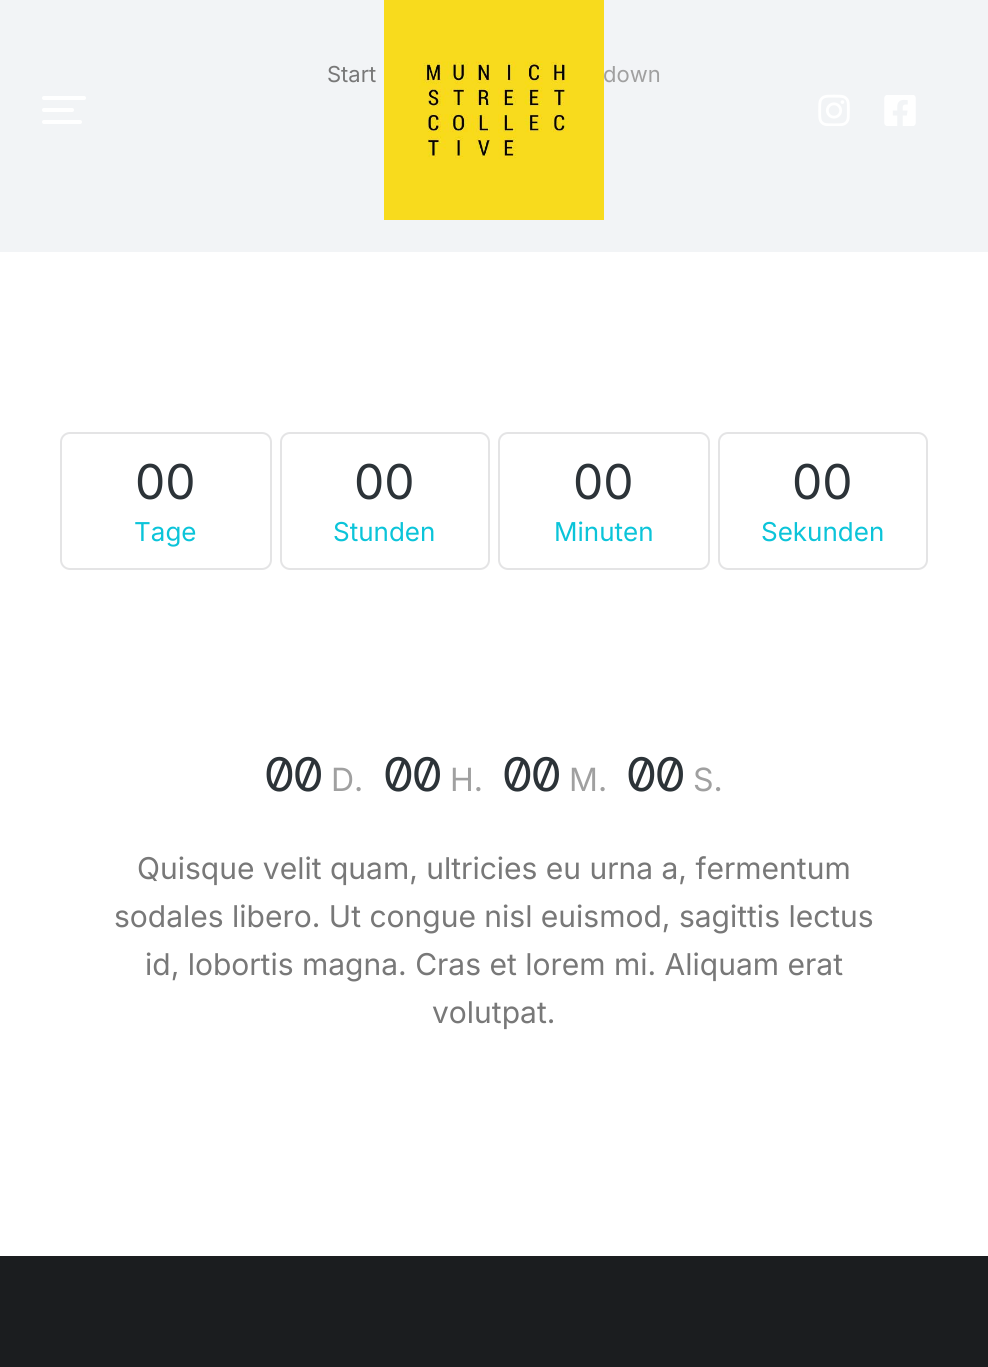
#include <cairo.h>
#include <math.h>
#include <stddef.h>

typedef struct { const char *family; double size; int italic, bold; unsigned color; } style_t;
static cairo_t *ctx;

static void ink(unsigned color) {
    cairo_set_source_rgb(ctx, (color >> 16) / 255.0, (color >> 8 & 255) / 255.0, (color & 255) / 255.0);
}

static void write(double x, double y, const char *s, const style_t *st) {
    cairo_select_font_face(ctx, st->family, st->italic ? CAIRO_FONT_SLANT_ITALIC : CAIRO_FONT_SLANT_NORMAL,
        st->bold ? CAIRO_FONT_WEIGHT_BOLD : CAIRO_FONT_WEIGHT_NORMAL);
    cairo_set_font_size(ctx, st->size);
    ink(st->color);
    cairo_move_to(ctx, x, y);
    cairo_show_text(ctx, s);
}

static void block(double x, double y, double w, double h, unsigned color) {
    ink(color);
    cairo_rectangle(ctx, x, y, w, h);
    cairo_fill(ctx);
}

static void round_path(double x, double y, double w, double h, double r) {
    cairo_new_sub_path(ctx);
    cairo_arc(ctx, x + w - r, y + h - r, r, 0, M_PI / 2);
    cairo_arc(ctx, x + r, y + h - r, r, M_PI / 2, M_PI);
    cairo_arc(ctx, x + r, y + r, r, M_PI, 1.5 * M_PI);
    cairo_arc(ctx, x + w - r, y + r, r, 1.5 * M_PI, 2 * M_PI);
    cairo_close_path(ctx);
}

static void paste(const char *path, double x, double y, double w, double h) {
    cairo_surface_t *image = cairo_image_surface_create_from_png(path);
    cairo_save(ctx);
    cairo_set_source_surface(ctx, image, x, y);
    cairo_rectangle(ctx, x, y, w, h);
    cairo_fill(ctx);
    cairo_restore(ctx);
    cairo_surface_destroy(image);
}

static const style_t s1 = {"Inter", 22, 0, 0, 0x787878};
static const style_t s2 = {"Inter", 22, 0, 0, 0xa0a0a0};
static const style_t s3 = {"Inter", 48, 0, 0, 0x2c3338};
static const style_t s4 = {"Inter", 26, 0, 0, 0x0bc4d9};
static const style_t s5 = {"DM Mono", 48, 0, 0, 0x2c3338};
static const style_t s6 = {"Inter", 32, 0, 0, 0xa0a0a0};
static const style_t s7 = {"Inter", 30, 0, 0, 0x787878};

int main(void) {
    cairo_surface_t *surface = cairo_image_surface_create(CAIRO_FORMAT_RGB24, 988, 1367);
    ctx = cairo_create(surface);
    cairo_font_options_t *options = cairo_font_options_create();
    cairo_font_options_set_hint_metrics(options, CAIRO_HINT_METRICS_OFF);
    cairo_font_options_set_hint_style(options, CAIRO_HINT_STYLE_NONE);
    cairo_set_font_options(ctx, options);
    cairo_set_miter_limit(ctx, 4);
    ink(0xffffff);
    cairo_paint(ctx);
    block(0, 0, 988, 252, 0xf2f4f6);
    paste("pic1.png", 42, 96, 44, 28);
    paste("pic2.png", 384, 0, 220, 220);
    paste("pic3.png", 818, 94, 32, 32);
    paste("pic4.png", 884, 95, 32, 31);
    write(327, 82, "Start", &s1);
    write(603, 82, "down", &s2);
    round_path(61, 433, 210, 136, 9);
    ink(0xe4e4e5);
    cairo_stroke(ctx);
    write(135, 499, "00", &s3);
    write(134, 541, "Tage", &s4);
    round_path(281, 433, 208, 136, 9);
    ink(0xe4e4e5);
    cairo_stroke(ctx);
    write(354, 499, "00", &s3);
    write(333, 541, "Stunden", &s4);
    round_path(499, 433, 210, 136, 9);
    ink(0xe4e4e5);
    cairo_stroke(ctx);
    write(573, 499, "00", &s3);
    write(554, 541, "Minuten", &s4);
    round_path(719, 433, 208, 136, 9);
    ink(0xe4e4e5);
    cairo_stroke(ctx);
    write(792, 499, "00", &s3);
    write(761, 541, "Sekunden", &s4);
    write(265, 791, "00", &s5);
    write(331, 791, "D.", &s6);
    write(384, 791, "00", &s5);
    write(450, 791, "H.", &s6);
    write(503, 791, "00", &s5);
    write(569, 791, "M.", &s6);
    write(627, 791, "00", &s5);
    write(693, 791, "S.", &s6);
    write(137, 879, "Quisque velit quam, ultricies eu urna a, fermentum", &s7);
    write(114, 927, "sodales libero. Ut congue nisl euismod, sagittis lectus", &s7);
    write(145, 975, "id, lobortis magna. Cras et lorem mi. Aliquam erat", &s7);
    write(432, 1023, "volutpat.", &s7);
    block(0, 1256, 988, 111, 0x1b1d1f);
    cairo_surface_write_to_png(surface, "screenshot.png");
    cairo_font_options_destroy(options);
    cairo_destroy(ctx);
    cairo_surface_destroy(surface);
    return 0;
}
